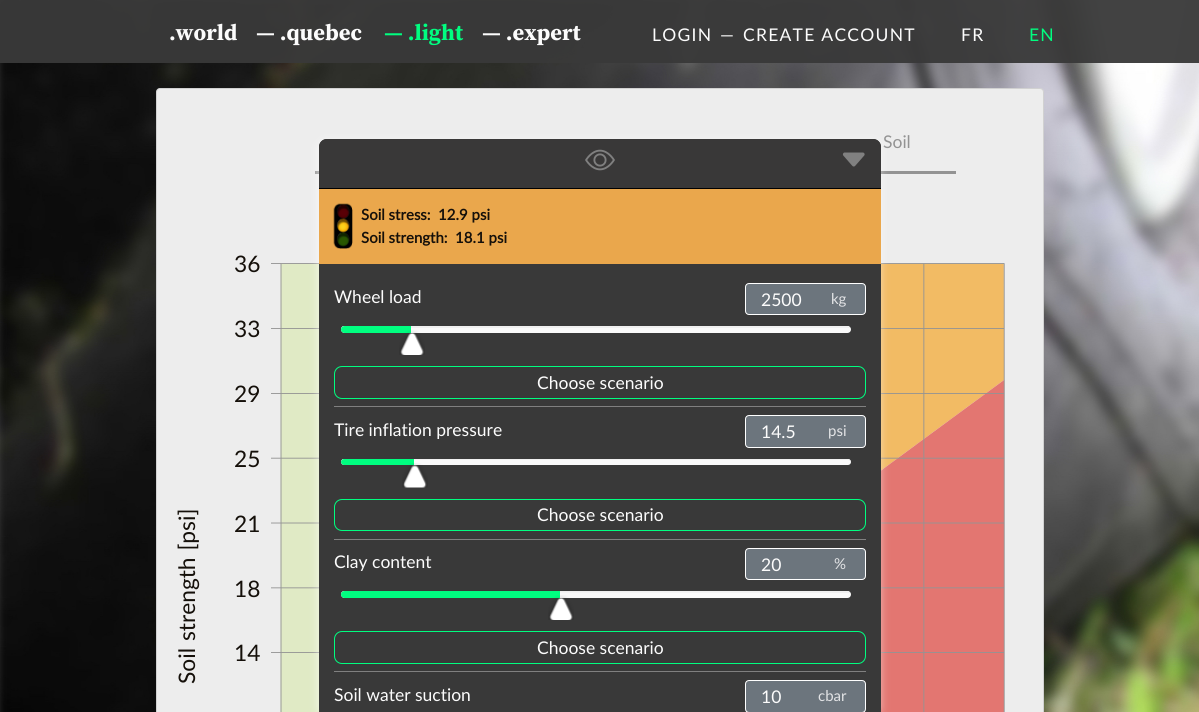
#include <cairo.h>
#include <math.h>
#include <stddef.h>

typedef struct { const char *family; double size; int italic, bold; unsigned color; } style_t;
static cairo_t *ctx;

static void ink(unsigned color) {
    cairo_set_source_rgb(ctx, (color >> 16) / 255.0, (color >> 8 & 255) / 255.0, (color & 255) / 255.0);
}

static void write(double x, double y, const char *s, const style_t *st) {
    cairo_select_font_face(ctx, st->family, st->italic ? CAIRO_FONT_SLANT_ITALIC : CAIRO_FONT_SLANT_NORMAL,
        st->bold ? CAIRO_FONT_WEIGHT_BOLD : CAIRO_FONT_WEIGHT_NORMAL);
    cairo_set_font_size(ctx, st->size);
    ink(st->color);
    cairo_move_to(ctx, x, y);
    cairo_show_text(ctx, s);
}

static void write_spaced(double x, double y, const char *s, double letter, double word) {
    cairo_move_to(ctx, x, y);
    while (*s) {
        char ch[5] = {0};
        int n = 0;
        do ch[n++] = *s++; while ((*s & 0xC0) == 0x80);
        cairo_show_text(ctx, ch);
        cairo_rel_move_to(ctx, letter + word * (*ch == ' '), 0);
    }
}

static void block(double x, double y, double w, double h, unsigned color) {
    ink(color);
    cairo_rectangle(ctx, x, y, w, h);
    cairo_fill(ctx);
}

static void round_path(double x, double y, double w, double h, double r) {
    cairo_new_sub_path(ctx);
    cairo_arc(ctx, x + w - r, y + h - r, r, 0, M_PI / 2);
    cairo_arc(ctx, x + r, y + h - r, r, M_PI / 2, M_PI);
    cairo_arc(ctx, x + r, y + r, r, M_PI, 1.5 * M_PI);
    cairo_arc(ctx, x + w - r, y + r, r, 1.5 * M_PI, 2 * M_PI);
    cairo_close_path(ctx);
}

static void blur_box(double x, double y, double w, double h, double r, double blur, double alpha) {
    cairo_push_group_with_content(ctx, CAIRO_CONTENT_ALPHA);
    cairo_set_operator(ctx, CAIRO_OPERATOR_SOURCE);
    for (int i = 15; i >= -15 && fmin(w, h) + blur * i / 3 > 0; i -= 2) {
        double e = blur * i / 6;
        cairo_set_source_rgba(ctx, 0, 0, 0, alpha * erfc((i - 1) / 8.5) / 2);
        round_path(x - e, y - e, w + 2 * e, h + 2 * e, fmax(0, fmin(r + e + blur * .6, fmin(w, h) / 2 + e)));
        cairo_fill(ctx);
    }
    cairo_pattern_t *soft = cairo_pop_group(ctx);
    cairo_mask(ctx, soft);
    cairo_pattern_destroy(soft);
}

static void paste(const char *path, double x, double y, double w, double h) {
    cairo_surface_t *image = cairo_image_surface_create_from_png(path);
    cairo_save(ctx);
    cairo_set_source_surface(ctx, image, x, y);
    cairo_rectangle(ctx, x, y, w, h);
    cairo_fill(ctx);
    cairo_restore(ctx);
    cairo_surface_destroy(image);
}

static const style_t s1 = {"Source Serif Pro", 22.5, 0, 1, 0xfcfcfc};
static const style_t s2 = {"Source Serif Pro", 22.5, 0, 1, 0x00fe80};
static const style_t s3 = {"Lato", 17.5, 0, 0, 0x939393};
static const style_t s4 = {"Lato", 22.75, 0, 0, 0x15100a};
static const style_t s5 = {"Lato", 15, 0, 1, 0x15100a};
static const style_t s6 = {"Lato", 17.5, 0, 0, 0xfcfcfc};
static const style_t s7 = {"Lato", 15, 0, 0, 0xe2e3e5};

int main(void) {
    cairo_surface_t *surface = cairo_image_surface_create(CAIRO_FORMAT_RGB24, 1199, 712);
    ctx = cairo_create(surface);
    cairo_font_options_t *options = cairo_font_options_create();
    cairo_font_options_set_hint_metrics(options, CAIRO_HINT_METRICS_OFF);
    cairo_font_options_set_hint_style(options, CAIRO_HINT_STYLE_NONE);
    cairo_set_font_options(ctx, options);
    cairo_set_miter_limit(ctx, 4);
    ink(0xffffff);
    cairo_paint(ctx);
    paste("pic1.png", 0, 0, 1199, 712);
    cairo_set_source_rgba(ctx, 0.224, 0.224, 0.224, 0.95);
    cairo_rectangle(ctx, 0, 0, 1199, 63);
    cairo_fill(ctx);
    write(169, 40, ".world", &s1);
    write(256, 40, "— .quebec", &s1);
    write(384, 40, "— .light", &s2);
    write(482, 40, "— .expert", &s1);
    cairo_select_font_face(ctx, "Lato", CAIRO_FONT_SLANT_NORMAL, CAIRO_FONT_WEIGHT_NORMAL);
    cairo_set_font_size(ctx, 17.5);
    write_spaced(652, 41, "LOGIN", 1.25, 0);
    write_spaced(720, 41, "—", 1.25, 0);
    write_spaced(743, 41, "CREATE ACCOUNT", 1.25, 0);
    write_spaced(961, 41, "FR", 1.25, 0);
    ink(0x00fe80);
    write_spaced(1029, 41, "EN", 1.25, 0);
    ink(0xededed);
    round_path(156, 88, 888, 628, 4);
    cairo_fill(ctx);
    round_path(156.5, 88.5, 887, 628, 3.5);
    cairo_set_source_rgba(ctx, 0, 0, 0, 0.12);
    cairo_set_line_width(ctx, 1);
    cairo_stroke(ctx);
    block(315, 171, 641, 3, 0x939393);
    write(883, 148, "Soil", &s3);
    write(234, 272, "36", &s4);
    paste("pic2.png", 271, 263, 734, 449);
    write(234, 337, "33", &s4);
    write(234, 402, "29", &s4);
    write(234, 467, "25", &s4);
    cairo_save(ctx);
    cairo_translate(ctx, 195, 684);
    cairo_rotate(ctx, -90 * M_PI / 180);
    write_spaced(0, 0, "Soil strength [psi]", 0, 1);
    cairo_restore(ctx);
    write(234, 532, "21", &s4);
    write(234, 597, "18", &s4);
    write(234, 661, "14", &s4);
    ink(0xffffff);
    blur_box(318, 141, 562, 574, 8, 4.5, 0.6);
    ink(0x393939);
    cairo_new_path(ctx);
    cairo_move_to(ctx, 327, 139);
    cairo_line_to(ctx, 873, 139);
    cairo_curve_to(ctx, 877.5, 139, 881, 142.5, 881, 147);
    cairo_line_to(ctx, 881, 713);
    cairo_line_to(ctx, 319, 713);
    cairo_line_to(ctx, 319, 147);
    cairo_curve_to(ctx, 319, 142.5, 322.5, 139, 327, 139);
    cairo_close_path(ctx);
    cairo_fill(ctx);
    ink(0x393838);
    cairo_new_path(ctx);
    cairo_move_to(ctx, 327, 139);
    cairo_line_to(ctx, 873, 139);
    cairo_curve_to(ctx, 877.5, 139, 881, 142.5, 881, 147);
    cairo_line_to(ctx, 881, 189);
    cairo_line_to(ctx, 319, 189);
    cairo_line_to(ctx, 319, 147);
    cairo_curve_to(ctx, 319, 142.5, 322.5, 139, 327, 139);
    cairo_close_path(ctx);
    cairo_fill(ctx);
    block(319, 188, 562, 1, 0x000000);
    paste("pic3.png", 585, 149, 30, 22);
    paste("pic4.png", 842, 152, 23, 15);
    block(319, 189, 562, 75, 0xeaa74c);
    paste("pic5.png", 333, 203, 20, 46);
    write(361, 220, "Soil stress:", &s5);
    write(438, 220, "12.9 psi", &s5);
    write(361, 243, "Soil strength:", &s5);
    write(455, 243, "18.1 psi", &s5);
    write(334, 303, "Wheel load", &s6);
    ink(0x6c757d);
    round_path(745.5, 283.5, 120, 31, 3.5);
    cairo_fill_preserve(ctx);
    ink(0xffffff);
    cairo_stroke(ctx);
    write(761, 306, "2500", &s6);
    write(831, 304, "kg", &s7);
    ink(0xfafafa);
    round_path(341, 326, 510, 7, 3.5);
    cairo_fill(ctx);
    ink(0xf0f0f0);
    cairo_new_path(ctx);
    cairo_move_to(ctx, 344, 328);
    cairo_line_to(ctx, 850, 328);
    cairo_line_to(ctx, 851, 330);
    cairo_curve_to(ctx, 851, 328, 849, 326, 848, 326);
    cairo_line_to(ctx, 344, 326);
    cairo_curve_to(ctx, 342, 326, 341, 328, 341, 330);
    cairo_curve_to(ctx, 341, 329, 342, 328, 344, 328);
    cairo_close_path(ctx);
    cairo_fill(ctx);
    ink(0x00fe80);
    cairo_new_path(ctx);
    cairo_move_to(ctx, 344.5, 326);
    cairo_line_to(ctx, 411, 326);
    cairo_line_to(ctx, 411, 333);
    cairo_line_to(ctx, 344.5, 333);
    cairo_curve_to(ctx, 342.5, 333, 341, 331.5, 341, 329.5);
    cairo_curve_to(ctx, 341, 327.5, 342.5, 326, 344.5, 326);
    cairo_close_path(ctx);
    cairo_fill(ctx);
    paste("pic6.png", 399, 330, 26, 25);
    round_path(334.5, 366.5, 531, 32, 7.5);
    cairo_stroke(ctx);
    write(537, 389, "Choose scenario", &s6);
    block(334, 406, 532, 1, 0x808080);
    write(334, 436, "Tire inflation pressure", &s6);
    ink(0x6c757d);
    round_path(745.5, 415.5, 120, 32, 3.5);
    cairo_fill_preserve(ctx);
    ink(0xffffff);
    cairo_stroke(ctx);
    write(761, 438, "14.5", &s6);
    write(828, 436, "psi", &s7);
    ink(0xfafafa);
    round_path(341, 459, 510, 6, 3);
    cairo_fill(ctx);
    ink(0xf0f0f0);
    cairo_new_path(ctx);
    cairo_move_to(ctx, 344, 460);
    cairo_line_to(ctx, 848, 460);
    cairo_line_to(ctx, 850, 461);
    cairo_line_to(ctx, 851, 463);
    cairo_curve_to(ctx, 851, 461, 850, 459, 848, 459);
    cairo_line_to(ctx, 344, 459);
    cairo_curve_to(ctx, 342, 459, 341, 461, 341, 462);
    cairo_curve_to(ctx, 341, 461, 342, 460, 344, 460);
    cairo_close_path(ctx);
    cairo_fill(ctx);
    ink(0x00fe80);
    cairo_new_path(ctx);
    cairo_move_to(ctx, 344, 459);
    cairo_line_to(ctx, 414, 459);
    cairo_line_to(ctx, 414, 465);
    cairo_line_to(ctx, 344, 465);
    cairo_curve_to(ctx, 342.5, 465, 341, 463.5, 341, 462);
    cairo_curve_to(ctx, 341, 460.5, 342.5, 459, 344, 459);
    cairo_close_path(ctx);
    cairo_fill(ctx);
    paste("pic7.png", 402, 463, 26, 25);
    round_path(334.5, 499.5, 531, 31, 7.5);
    cairo_stroke(ctx);
    write(537, 521, "Choose scenario", &s6);
    block(334, 539, 532, 1, 0x808080);
    write(334, 568, "Clay content", &s6);
    ink(0x6c757d);
    round_path(745.5, 548.5, 120, 31, 3.5);
    cairo_fill_preserve(ctx);
    ink(0xffffff);
    cairo_stroke(ctx);
    write(761, 571, "20", &s6);
    write(834, 569, "%", &s7);
    ink(0xfafafa);
    round_path(341, 591, 510, 7, 3.5);
    cairo_fill(ctx);
    ink(0xf0f0f0);
    cairo_new_path(ctx);
    cairo_move_to(ctx, 344, 592);
    cairo_line_to(ctx, 849, 593);
    cairo_curve_to(ctx, 850, 593, 851, 594, 851, 595);
    cairo_curve_to(ctx, 851, 593, 849, 591, 848, 591);
    cairo_line_to(ctx, 344, 591);
    cairo_curve_to(ctx, 343, 591, 342, 592, 341, 593);
    cairo_line_to(ctx, 341, 595);
    cairo_curve_to(ctx, 341, 593, 342, 592, 344, 592);
    cairo_close_path(ctx);
    cairo_fill(ctx);
    ink(0x00fe80);
    cairo_new_path(ctx);
    cairo_move_to(ctx, 344.5, 591);
    cairo_line_to(ctx, 560, 591);
    cairo_line_to(ctx, 560, 598);
    cairo_line_to(ctx, 344.5, 598);
    cairo_curve_to(ctx, 342.5, 598, 341, 596.5, 341, 594.5);
    cairo_curve_to(ctx, 341, 592.5, 342.5, 591, 344.5, 591);
    cairo_close_path(ctx);
    cairo_fill(ctx);
    paste("pic6.png", 548, 595, 26, 25);
    round_path(334.5, 631.5, 531, 32, 7.5);
    cairo_stroke(ctx);
    write(537, 654, "Choose scenario", &s6);
    block(334, 671, 532, 1, 0x808080);
    write(334, 701, "Soil water suction", &s6);
    ink(0x6c757d);
    round_path(745.5, 680.5, 120, 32, 3.5);
    cairo_fill_preserve(ctx);
    ink(0xffffff);
    cairo_stroke(ctx);
    write(761, 703, "10", &s6);
    write(818, 701, "cbar", &s7);
    cairo_surface_write_to_png(surface, "screenshot.png");
    cairo_font_options_destroy(options);
    cairo_destroy(ctx);
    cairo_surface_destroy(surface);
    return 0;
}
